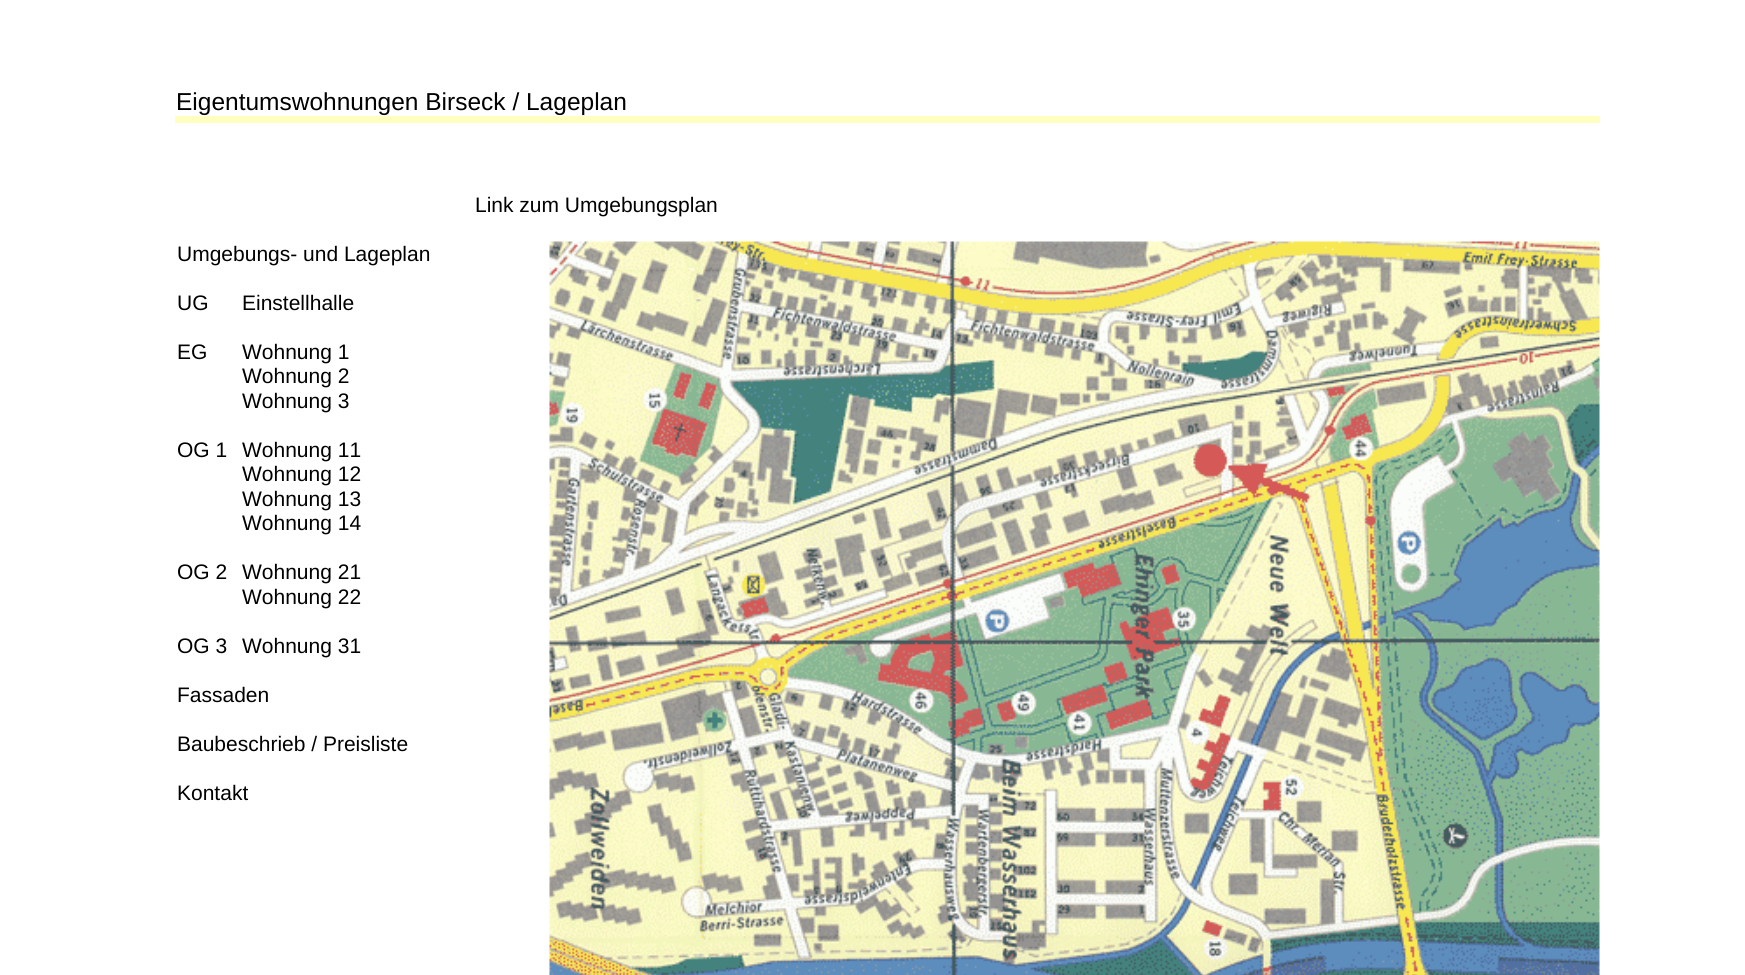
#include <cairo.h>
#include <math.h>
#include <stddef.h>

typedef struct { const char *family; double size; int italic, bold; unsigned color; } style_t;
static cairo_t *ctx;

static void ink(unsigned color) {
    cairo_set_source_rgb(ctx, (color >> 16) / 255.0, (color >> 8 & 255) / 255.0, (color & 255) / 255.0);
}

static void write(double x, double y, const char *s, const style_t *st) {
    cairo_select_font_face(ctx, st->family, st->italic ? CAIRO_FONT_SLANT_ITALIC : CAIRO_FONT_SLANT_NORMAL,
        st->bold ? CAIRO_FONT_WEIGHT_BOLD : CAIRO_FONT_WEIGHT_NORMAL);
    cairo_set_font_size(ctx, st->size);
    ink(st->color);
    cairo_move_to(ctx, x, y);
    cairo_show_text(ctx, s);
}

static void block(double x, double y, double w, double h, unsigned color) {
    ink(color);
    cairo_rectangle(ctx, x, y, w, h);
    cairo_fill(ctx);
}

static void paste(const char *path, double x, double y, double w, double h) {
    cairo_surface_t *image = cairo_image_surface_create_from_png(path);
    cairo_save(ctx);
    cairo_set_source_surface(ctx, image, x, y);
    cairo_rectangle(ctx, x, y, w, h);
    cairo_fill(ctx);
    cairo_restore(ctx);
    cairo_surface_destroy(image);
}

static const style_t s1 = {"Liberation Sans", 24.5, 0, 0, 0x000000};
static const style_t s2 = {"Liberation Sans", 21, 0, 0, 0x000000};

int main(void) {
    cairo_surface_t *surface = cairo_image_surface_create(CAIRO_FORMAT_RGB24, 1745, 975);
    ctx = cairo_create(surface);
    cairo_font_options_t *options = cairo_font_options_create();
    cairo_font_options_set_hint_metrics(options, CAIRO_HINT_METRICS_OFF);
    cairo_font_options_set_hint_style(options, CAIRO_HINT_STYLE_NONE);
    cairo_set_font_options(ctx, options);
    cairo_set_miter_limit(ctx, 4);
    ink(0xffffff);
    cairo_paint(ctx);
    write(176, 110, "Eigentumswohnungen Birseck / Lageplan", &s1);
    block(175, 116, 1425, 7, 0xffffbf);
    write(475, 212, "Link zum Umgebungsplan", &s2);
    write(177, 261, "Umgebungs- und Lageplan", &s2);
    write(177, 310, "UG", &s2);
    write(242, 310, "Einstellhalle", &s2);
    write(177, 359, "EG", &s2);
    write(242, 359, "Wohnung 1", &s2);
    write(242, 383, "Wohnung 2", &s2);
    write(242, 408, "Wohnung 3", &s2);
    write(177, 457, "OG 1", &s2);
    write(242, 457, "Wohnung 11", &s2);
    write(242, 481, "Wohnung 12", &s2);
    write(242, 506, "Wohnung 13", &s2);
    write(242, 530, "Wohnung 14", &s2);
    write(177, 579, "OG 2", &s2);
    write(242, 579, "Wohnung 21", &s2);
    write(242, 604, "Wohnung 22", &s2);
    write(177, 653, "OG 3", &s2);
    write(242, 653, "Wohnung 31", &s2);
    write(177, 702, "Fassaden", &s2);
    write(177, 751, "Baubeschrieb / Preisliste", &s2);
    write(177, 800, "Kontakt", &s2);
    paste("pic1.png", 549, 241, 1051, 734);
    cairo_surface_write_to_png(surface, "screenshot.png");
    cairo_font_options_destroy(options);
    cairo_destroy(ctx);
    cairo_surface_destroy(surface);
    return 0;
}
